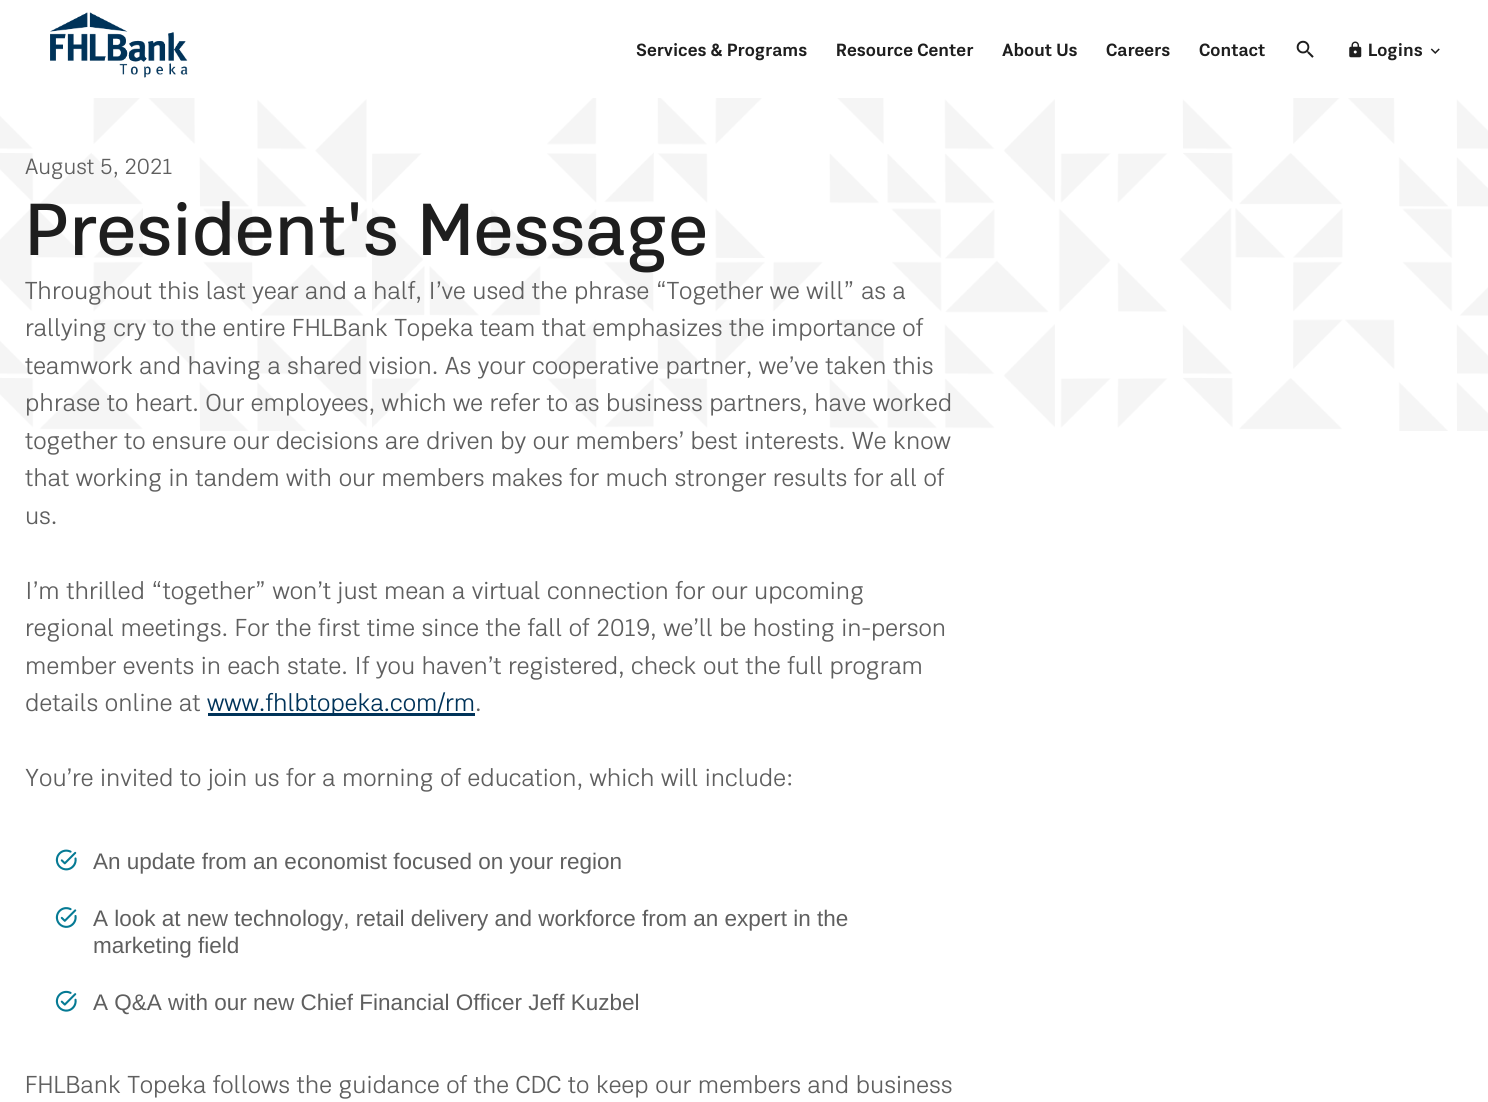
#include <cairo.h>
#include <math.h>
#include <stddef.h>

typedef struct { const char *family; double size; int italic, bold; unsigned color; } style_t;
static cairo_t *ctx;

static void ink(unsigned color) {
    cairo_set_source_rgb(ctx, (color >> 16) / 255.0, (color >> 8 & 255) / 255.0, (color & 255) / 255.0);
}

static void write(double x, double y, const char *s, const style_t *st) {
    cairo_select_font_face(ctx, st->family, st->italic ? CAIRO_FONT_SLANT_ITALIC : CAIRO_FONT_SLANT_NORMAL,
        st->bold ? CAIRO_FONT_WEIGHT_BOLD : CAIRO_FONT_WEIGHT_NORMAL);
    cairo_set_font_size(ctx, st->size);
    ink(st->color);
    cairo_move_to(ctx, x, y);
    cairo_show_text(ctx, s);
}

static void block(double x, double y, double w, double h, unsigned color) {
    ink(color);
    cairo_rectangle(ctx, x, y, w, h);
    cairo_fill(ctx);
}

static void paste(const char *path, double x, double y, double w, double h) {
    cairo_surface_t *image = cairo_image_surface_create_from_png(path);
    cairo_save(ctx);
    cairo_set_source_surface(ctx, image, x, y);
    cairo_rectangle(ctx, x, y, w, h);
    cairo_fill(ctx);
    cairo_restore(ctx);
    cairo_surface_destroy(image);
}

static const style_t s1 = {"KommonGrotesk", 18, 0, 1, 0x1e1e1e};
static const style_t s2 = {"Kommon Grotesk Light", 22.5, 0, 0, 0x5f5f5f};
static const style_t s3 = {"Kommon Grotesk Medium", 75, 0, 0, 0x1e1e1e};
static const style_t s4 = {"Kommon Grotesk Light", 25, 0, 0, 0x5f5f5f};
static const style_t s5 = {"Kommon Grotesk Light", 25, 0, 0, 0x003359};
static const style_t s6 = {"Liberation Sans", 22.5, 0, 0, 0x5f5f5f};

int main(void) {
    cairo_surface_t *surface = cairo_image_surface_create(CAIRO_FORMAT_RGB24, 1488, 1102);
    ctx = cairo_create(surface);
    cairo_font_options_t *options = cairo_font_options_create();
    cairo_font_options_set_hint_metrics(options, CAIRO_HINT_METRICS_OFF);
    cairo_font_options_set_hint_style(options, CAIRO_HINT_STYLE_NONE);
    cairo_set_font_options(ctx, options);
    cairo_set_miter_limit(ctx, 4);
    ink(0xffffff);
    cairo_paint(ctx);
    paste("pic1.png", 50, 12, 138, 66);
    write(636, 56, "Services & Programs", &s1);
    write(836, 56, "Resource Center", &s1);
    write(1002, 56, "About Us", &s1);
    write(1106, 56, "Careers", &s1);
    write(1199, 56, "Contact", &s1);
    paste("pic2.png", 1296, 40, 18, 18);
    paste("pic3.png", 1349, 41, 13, 17);
    write(1368, 56, "Logins", &s1);
    paste("pic4.png", 1430, 48, 10, 6);
    paste("pic5.png", 0, 98, 1488, 333);
    write(25, 174, "August 5, 2021", &s2);
    write(25, 255, "President's Message", &s3);
    write(25, 299, "Throughout this last year and a half, I’ve used the phrase “Together we will” as a", &s4);
    write(25, 336, "rallying cry to the entire FHLBank Topeka team that emphasizes the importance of", &s4);
    write(25, 374, "teamwork and having a shared vision. As your cooperative partner, we’ve taken this", &s4);
    write(25, 411, "phrase to heart. Our employees, which we refer to as business partners, have worked", &s4);
    write(25, 449, "together to ensure our decisions are driven by our members’ best interests. We know", &s4);
    write(25, 486, "that working in tandem with our members makes for much stronger results for all of", &s4);
    write(25, 524, "us.", &s4);
    write(25, 599, "I’m thrilled “together” won’t just mean a virtual connection for our upcoming", &s4);
    write(25, 636, "regional meetings. For the first time since the fall of 2019, we’ll be hosting in-person", &s4);
    write(25, 674, "member events in each state. If you haven’t registered, check out the full program", &s4);
    write(25, 711, "details online at", &s4);
    block(208, 713, 267, 3, 0x003359);
    write(207, 711, "www.fhlbtopeka.com/rm", &s5);
    write(475, 711, ".", &s4);
    write(25, 786, "You’re invited to join us for a morning of education, which will include:", &s4);
    paste("pic6.png", 55, 849, 22, 22);
    write(93, 869, "An update from an economist focused on your region", &s6);
    paste("pic7.png", 55, 907, 22, 21);
    write(93, 926, "A look at new technology, retail delivery and workforce from an expert in the", &s6);
    write(93, 953, "marketing field", &s6);
    paste("pic8.png", 55, 990, 22, 22);
    write(93, 1010, "A Q&A with our new Chief Financial Officer Jeff Kuzbel", &s6);
    write(25, 1093, "FHLBank Topeka follows the guidance of the CDC to keep our members and business", &s4);
    cairo_surface_write_to_png(surface, "screenshot.png");
    cairo_font_options_destroy(options);
    cairo_destroy(ctx);
    cairo_surface_destroy(surface);
    return 0;
}
